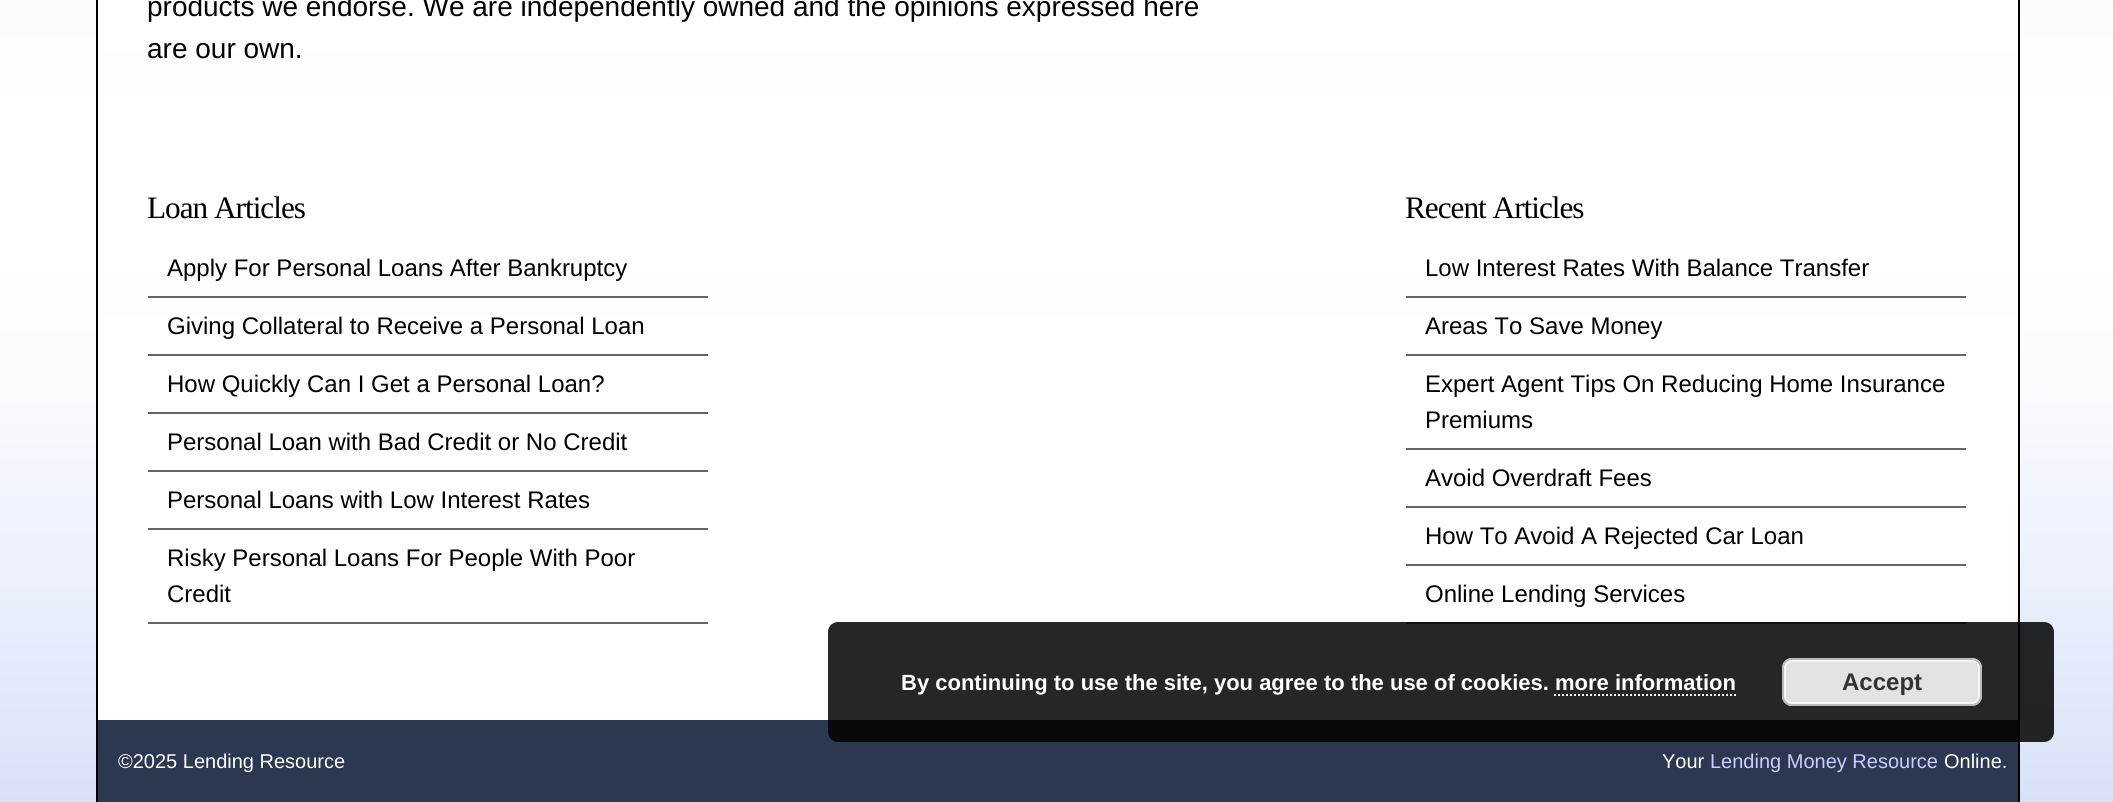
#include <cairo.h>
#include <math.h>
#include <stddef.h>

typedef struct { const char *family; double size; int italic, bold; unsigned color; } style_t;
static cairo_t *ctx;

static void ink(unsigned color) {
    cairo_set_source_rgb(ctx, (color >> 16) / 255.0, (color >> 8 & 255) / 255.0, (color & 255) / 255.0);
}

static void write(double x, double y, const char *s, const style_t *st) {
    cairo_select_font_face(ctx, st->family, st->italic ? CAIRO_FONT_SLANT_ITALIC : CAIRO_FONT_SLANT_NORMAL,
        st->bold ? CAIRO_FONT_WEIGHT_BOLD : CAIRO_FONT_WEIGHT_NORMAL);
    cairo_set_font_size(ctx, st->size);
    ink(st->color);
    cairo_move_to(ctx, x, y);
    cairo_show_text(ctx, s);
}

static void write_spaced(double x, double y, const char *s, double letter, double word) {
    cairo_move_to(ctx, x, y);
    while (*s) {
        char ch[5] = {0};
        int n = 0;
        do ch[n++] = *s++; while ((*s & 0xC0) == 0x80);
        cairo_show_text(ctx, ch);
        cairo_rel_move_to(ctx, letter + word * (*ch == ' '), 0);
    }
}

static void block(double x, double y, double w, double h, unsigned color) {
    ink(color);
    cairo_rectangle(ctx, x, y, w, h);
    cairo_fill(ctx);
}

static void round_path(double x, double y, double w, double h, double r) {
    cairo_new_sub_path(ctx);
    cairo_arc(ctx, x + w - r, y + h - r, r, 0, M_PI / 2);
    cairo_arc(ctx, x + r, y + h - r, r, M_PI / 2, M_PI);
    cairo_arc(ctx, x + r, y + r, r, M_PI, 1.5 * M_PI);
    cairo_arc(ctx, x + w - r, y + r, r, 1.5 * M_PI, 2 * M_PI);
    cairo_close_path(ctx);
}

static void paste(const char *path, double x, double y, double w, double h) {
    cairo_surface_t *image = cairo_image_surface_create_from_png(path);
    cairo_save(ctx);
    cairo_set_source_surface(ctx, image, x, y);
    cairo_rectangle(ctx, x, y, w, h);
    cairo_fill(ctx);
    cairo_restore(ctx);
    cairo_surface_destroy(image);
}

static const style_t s1 = {"Liberation Sans", 28, 0, 0, 0x000000};
static const style_t s2 = {"Liberation Sans", 24, 0, 0, 0x000000};
static const style_t s3 = {"Liberation Sans", 20, 0, 0, 0xffffff};
static const style_t s4 = {"Liberation Sans", 20, 0, 0, 0xccccff};
static const style_t s5 = {"Liberation Sans", 22, 0, 1, 0xffffff};
static const style_t s6 = {"Liberation Sans", 24, 0, 1, 0x333333};

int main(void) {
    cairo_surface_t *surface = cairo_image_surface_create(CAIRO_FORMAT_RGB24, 2113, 802);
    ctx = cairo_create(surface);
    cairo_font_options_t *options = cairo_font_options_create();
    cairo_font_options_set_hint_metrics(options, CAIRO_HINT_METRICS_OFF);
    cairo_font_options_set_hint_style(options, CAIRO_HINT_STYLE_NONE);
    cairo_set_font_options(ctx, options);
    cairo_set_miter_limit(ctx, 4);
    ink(0xffffff);
    cairo_paint(ctx);
    paste("pic1.png", 0, 0, 2113, 802);
    block(98, 0, 1920, 52, 0xffffff);
    write(147, 16, "products we endorse. We are independently owned and the opinions expressed here", &s1);
    write(147, 58, "are our own.", &s1);
    block(98, 316, 1920, 404, 0xffffff);
    block(2018, 0, 2, 802, 0x000000);
    block(96, 0, 2, 802, 0x000000);
    cairo_select_font_face(ctx, "Liberation Serif", CAIRO_FONT_SLANT_NORMAL, CAIRO_FONT_WEIGHT_NORMAL);
    cairo_set_font_size(ctx, 31.25);
    write_spaced(147, 218, "Loan Articles", -1, 0);
    block(148, 296, 560, 2, 0x666666);
    write(167, 276, "Apply For Personal Loans After Bankruptcy", &s2);
    block(148, 354, 560, 2, 0x666666);
    write(167, 334, "Giving Collateral to Receive a Personal Loan", &s2);
    block(148, 412, 560, 2, 0x666666);
    write(167, 392, "How Quickly Can I Get a Personal Loan?", &s2);
    block(148, 470, 560, 2, 0x666666);
    write(167, 450, "Personal Loan with Bad Credit or No Credit", &s2);
    block(148, 528, 560, 2, 0x666666);
    write(167, 508, "Personal Loans with Low Interest Rates", &s2);
    block(148, 622, 560, 2, 0x666666);
    write(167, 566, "Risky Personal Loans For People With Poor", &s2);
    write(167, 602, "Credit", &s2);
    cairo_select_font_face(ctx, "Liberation Serif", CAIRO_FONT_SLANT_NORMAL, CAIRO_FONT_WEIGHT_NORMAL);
    cairo_set_font_size(ctx, 31.25);
    write_spaced(1405, 218, "Recent Articles", -1, 0);
    block(1406, 296, 560, 2, 0x666666);
    write(1425, 276, "Low Interest Rates With Balance Transfer", &s2);
    block(1406, 354, 560, 2, 0x666666);
    write(1425, 334, "Areas To Save Money", &s2);
    block(1406, 448, 560, 2, 0x666666);
    write(1425, 392, "Expert Agent Tips On Reducing Home Insurance", &s2);
    write(1425, 428, "Premiums", &s2);
    block(1406, 506, 560, 2, 0x666666);
    write(1425, 486, "Avoid Overdraft Fees", &s2);
    block(1406, 564, 560, 2, 0x666666);
    write(1425, 544, "How To Avoid A Rejected Car Loan", &s2);
    block(1406, 622, 560, 2, 0x666666);
    write(1425, 602, "Online Lending Services", &s2);
    block(98, 720, 1920, 82, 0x2c3850);
    write(118, 768, "©2025 Lending Resource", &s3);
    write(1662, 768, "Your", &s3);
    write(1710, 768, "Lending Money Resource", &s4);
    write(1944, 768, "Online.", &s3);
    cairo_set_source_rgba(ctx, 0, 0, 0, 0.85);
    round_path(828, 622, 1226, 120, 10);
    cairo_fill(ctx);
    write(901, 690, "By continuing to use the site, you agree to the use of cookies. more information", &s5);
    ink(0xe3e3e3);
    round_path(1782, 658, 200, 48, 10);
    cairo_fill(ctx);
    round_path(1785, 661, 194, 42, 7);
    ink(0xf6f6f6);
    cairo_stroke(ctx);
    round_path(1783, 659, 198, 46, 9);
    ink(0xbbbbbb);
    cairo_stroke(ctx);
    write(1842, 690, "Accept", &s6);
    cairo_new_path(ctx);
    cairo_move_to(ctx, 1554, 695);
    cairo_line_to(ctx, 1736, 695);
    ink(0xffffff);
    cairo_set_dash(ctx, (double[]){2, 2}, 2, 0);
    cairo_stroke(ctx);
    cairo_surface_write_to_png(surface, "screenshot.png");
    cairo_font_options_destroy(options);
    cairo_destroy(ctx);
    cairo_surface_destroy(surface);
    return 0;
}
